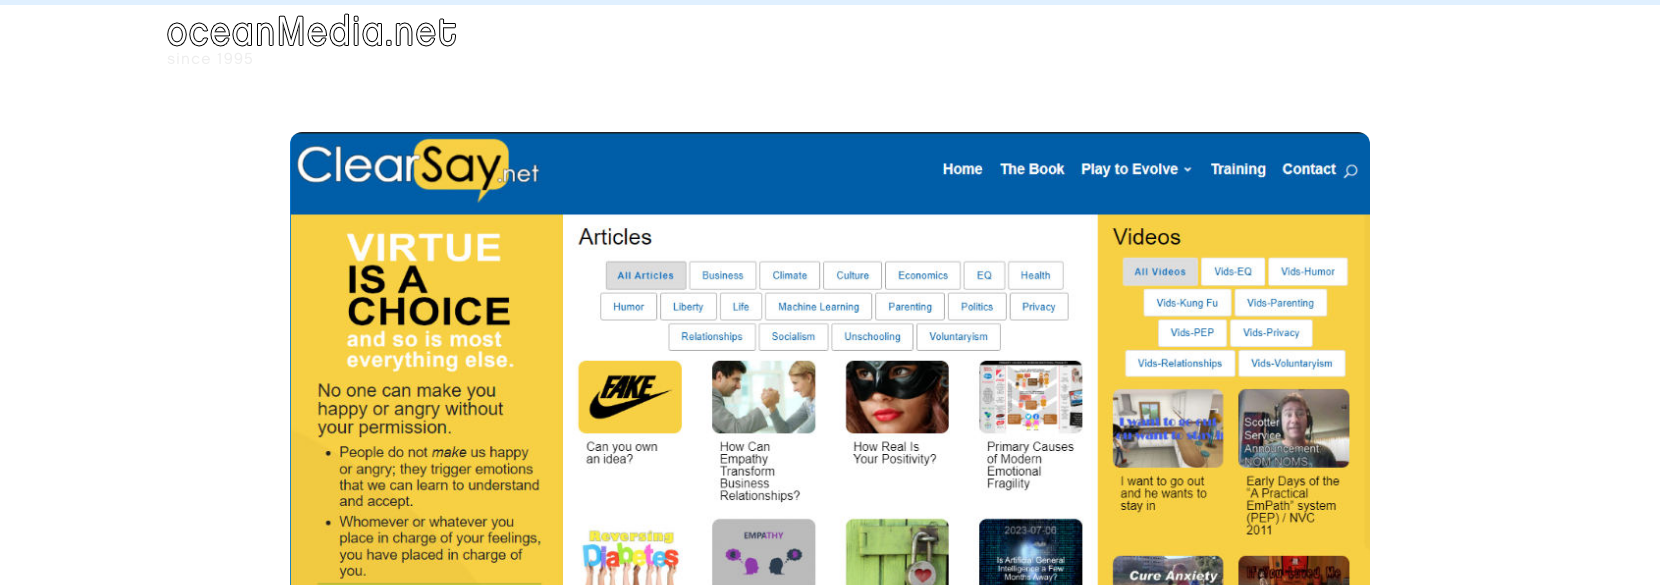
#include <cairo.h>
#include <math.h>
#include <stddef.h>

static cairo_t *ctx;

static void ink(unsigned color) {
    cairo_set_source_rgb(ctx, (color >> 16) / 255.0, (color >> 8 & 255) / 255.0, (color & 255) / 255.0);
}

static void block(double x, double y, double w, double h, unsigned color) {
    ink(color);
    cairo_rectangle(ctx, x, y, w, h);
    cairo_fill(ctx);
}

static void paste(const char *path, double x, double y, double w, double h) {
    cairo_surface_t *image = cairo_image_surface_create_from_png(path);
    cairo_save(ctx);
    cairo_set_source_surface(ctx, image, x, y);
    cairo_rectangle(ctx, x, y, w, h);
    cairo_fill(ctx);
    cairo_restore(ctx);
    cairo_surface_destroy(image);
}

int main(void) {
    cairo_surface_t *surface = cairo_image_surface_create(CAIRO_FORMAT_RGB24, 1660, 585);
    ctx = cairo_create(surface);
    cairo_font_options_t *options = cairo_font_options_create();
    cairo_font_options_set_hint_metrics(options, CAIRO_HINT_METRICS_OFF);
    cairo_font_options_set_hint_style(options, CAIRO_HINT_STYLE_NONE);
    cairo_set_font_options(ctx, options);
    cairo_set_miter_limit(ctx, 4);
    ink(0xe0f0ff);
    cairo_paint(ctx);
    block(0, 5, 1660, 580, 0xffffff);
    paste("pic1.png", 290, 132, 1080, 453);
    paste("pic2.png", 167, 13, 289, 51);
    cairo_surface_write_to_png(surface, "screenshot.png");
    cairo_font_options_destroy(options);
    cairo_destroy(ctx);
    cairo_surface_destroy(surface);
    return 0;
}
